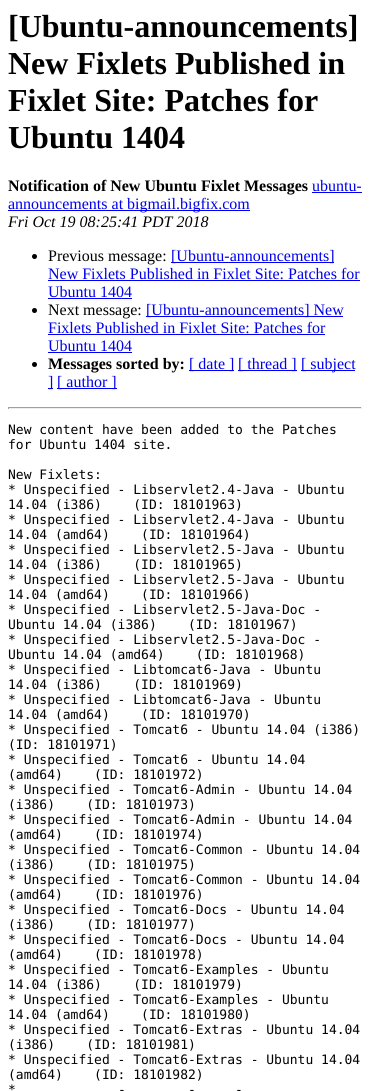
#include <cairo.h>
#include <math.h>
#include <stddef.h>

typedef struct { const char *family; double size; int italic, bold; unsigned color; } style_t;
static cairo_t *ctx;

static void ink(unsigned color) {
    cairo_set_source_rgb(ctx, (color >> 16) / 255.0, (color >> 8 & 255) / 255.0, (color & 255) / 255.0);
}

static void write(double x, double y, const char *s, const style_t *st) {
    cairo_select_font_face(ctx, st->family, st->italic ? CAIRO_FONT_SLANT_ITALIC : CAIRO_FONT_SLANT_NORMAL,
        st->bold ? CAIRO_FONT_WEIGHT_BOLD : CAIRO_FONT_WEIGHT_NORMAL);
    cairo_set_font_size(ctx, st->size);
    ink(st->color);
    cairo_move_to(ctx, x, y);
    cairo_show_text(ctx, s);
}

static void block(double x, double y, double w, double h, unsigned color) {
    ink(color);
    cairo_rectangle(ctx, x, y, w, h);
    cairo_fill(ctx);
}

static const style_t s1 = {"Liberation Serif", 32, 0, 1, 0x000000};
static const style_t s2 = {"Liberation Serif", 16, 0, 1, 0x000000};
static const style_t s3 = {"Liberation Serif", 16, 0, 0, 0x0000ee};
static const style_t s4 = {"Liberation Serif", 16, 1, 0, 0x000000};
static const style_t s5 = {"Liberation Serif", 16, 0, 0, 0x000000};
static const style_t s6 = {"DejaVu Sans Mono", 13, 0, 0, 0x000000};

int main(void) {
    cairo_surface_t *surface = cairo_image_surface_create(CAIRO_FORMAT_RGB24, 370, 1091);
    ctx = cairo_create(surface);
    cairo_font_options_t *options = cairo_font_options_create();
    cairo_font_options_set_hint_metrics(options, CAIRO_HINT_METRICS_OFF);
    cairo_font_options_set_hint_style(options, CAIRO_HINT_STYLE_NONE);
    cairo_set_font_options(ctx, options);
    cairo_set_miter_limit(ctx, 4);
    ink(0xffffff);
    cairo_paint(ctx);
    write(8, 37, "[Ubuntu-announcements]", &s1);
    write(8, 74, "New Fixlets Published in", &s1);
    write(8, 111, "Fixlet Site: Patches for", &s1);
    write(8, 148, "Ubuntu 1404", &s1);
    write(8, 191, "Notification of New Ubuntu Fixlet Messages", &s2);
    write(312, 191, "ubuntu-", &s3);
    block(312, 192, 50, 1, 0x0000ee);
    block(8, 210, 242, 1, 0x0000ee);
    write(8, 209, "announcements at bigmail.bigfix.com", &s3);
    write(8, 227, "Fri Oct 19 08:25:41 PDT 2018", &s4);
    cairo_new_path(ctx);
    cairo_arc(ctx, 34.5, 256.5, 2.5, 0, 2 * M_PI);
    cairo_fill(ctx);
    write(48, 261, "Previous message:", &s5);
    block(171, 262, 163, 1, 0x0000ee);
    write(171, 261, "[Ubuntu-announcements]", &s3);
    write(48, 279, "New Fixlets Published in Fixlet Site: Patches for", &s3);
    block(48, 280, 312, 1, 0x0000ee);
    write(48, 297, "Ubuntu 1404", &s3);
    block(48, 298, 84, 1, 0x0000ee);
    ink(0x000000);
    cairo_new_path(ctx);
    cairo_arc(ctx, 34.5, 310.5, 2.5, 0, 2 * M_PI);
    cairo_fill(ctx);
    write(48, 315, "Next message:", &s5);
    block(146, 316, 197, 1, 0x0000ee);
    write(146, 315, "[Ubuntu-announcements] New", &s3);
    write(48, 333, "Fixlets Published in Fixlet Site: Patches for", &s3);
    block(48, 334, 277, 1, 0x0000ee);
    write(48, 351, "Ubuntu 1404", &s3);
    block(48, 352, 84, 1, 0x0000ee);
    ink(0x000000);
    cairo_new_path(ctx);
    cairo_arc(ctx, 34.5, 364.5, 2.5, 0, 2 * M_PI);
    cairo_fill(ctx);
    write(48, 369, "Messages sorted by:", &s2);
    block(189, 370, 45, 1, 0x0000ee);
    write(189, 369, "[ date ]", &s3);
    block(238, 370, 59, 1, 0x0000ee);
    write(238, 369, "[ thread ]", &s3);
    block(301, 370, 54, 1, 0x0000ee);
    write(301, 369, "[ subject", &s3);
    block(48, 388, 5, 1, 0x0000ee);
    write(48, 387, "]", &s3);
    block(57, 388, 60, 1, 0x0000ee);
    write(57, 387, "[ author ]", &s3);
    block(8, 407, 354, 1, 0x9f9f9f);
    block(361, 407, 1, 2, 0xeeeeee);
    block(8, 408, 354, 1, 0xeeeeee);
    block(8, 407, 1, 2, 0x9f9f9f);
    write(8, 434, "New content have been added to the Patches", &s6);
    write(8, 449, "for Ubuntu 1404 site.", &s6);
    write(8, 479, "New Fixlets:", &s6);
    write(8, 494, "* Unspecified - Libservlet2.4-Java - Ubuntu", &s6);
    write(8, 509, "14.04 (i386)    (ID: 18101963)", &s6);
    write(8, 524, "* Unspecified - Libservlet2.4-Java - Ubuntu", &s6);
    write(8, 539, "14.04 (amd64)    (ID: 18101964)", &s6);
    write(8, 554, "* Unspecified - Libservlet2.5-Java - Ubuntu", &s6);
    write(8, 569, "14.04 (i386)    (ID: 18101965)", &s6);
    write(8, 584, "* Unspecified - Libservlet2.5-Java - Ubuntu", &s6);
    write(8, 599, "14.04 (amd64)    (ID: 18101966)", &s6);
    write(8, 614, "* Unspecified - Libservlet2.5-Java-Doc -", &s6);
    write(8, 629, "Ubuntu 14.04 (i386)    (ID: 18101967)", &s6);
    write(8, 644, "* Unspecified - Libservlet2.5-Java-Doc -", &s6);
    write(8, 659, "Ubuntu 14.04 (amd64)    (ID: 18101968)", &s6);
    write(8, 674, "* Unspecified - Libtomcat6-Java - Ubuntu", &s6);
    write(8, 689, "14.04 (i386)    (ID: 18101969)", &s6);
    write(8, 704, "* Unspecified - Libtomcat6-Java - Ubuntu", &s6);
    write(8, 719, "14.04 (amd64)    (ID: 18101970)", &s6);
    write(8, 734, "* Unspecified - Tomcat6 - Ubuntu 14.04 (i386)", &s6);
    write(8, 749, "(ID: 18101971)", &s6);
    write(8, 764, "* Unspecified - Tomcat6 - Ubuntu 14.04", &s6);
    write(8, 779, "(amd64)    (ID: 18101972)", &s6);
    write(8, 794, "* Unspecified - Tomcat6-Admin - Ubuntu 14.04", &s6);
    write(8, 809, "(i386)    (ID: 18101973)", &s6);
    write(8, 824, "* Unspecified - Tomcat6-Admin - Ubuntu 14.04", &s6);
    write(8, 839, "(amd64)    (ID: 18101974)", &s6);
    write(8, 854, "* Unspecified - Tomcat6-Common - Ubuntu 14.04", &s6);
    write(8, 869, "(i386)    (ID: 18101975)", &s6);
    write(8, 884, "* Unspecified - Tomcat6-Common - Ubuntu 14.04", &s6);
    write(8, 899, "(amd64)    (ID: 18101976)", &s6);
    write(8, 914, "* Unspecified - Tomcat6-Docs - Ubuntu 14.04", &s6);
    write(8, 929, "(i386)    (ID: 18101977)", &s6);
    write(8, 944, "* Unspecified - Tomcat6-Docs - Ubuntu 14.04", &s6);
    write(8, 959, "(amd64)    (ID: 18101978)", &s6);
    write(8, 974, "* Unspecified - Tomcat6-Examples - Ubuntu", &s6);
    write(8, 989, "14.04 (i386)    (ID: 18101979)", &s6);
    write(8, 1004, "* Unspecified - Tomcat6-Examples - Ubuntu", &s6);
    write(8, 1019, "14.04 (amd64)    (ID: 18101980)", &s6);
    write(8, 1034, "* Unspecified - Tomcat6-Extras - Ubuntu 14.04", &s6);
    write(8, 1049, "(i386)    (ID: 18101981)", &s6);
    write(8, 1064, "* Unspecified - Tomcat6-Extras - Ubuntu 14.04", &s6);
    write(8, 1079, "(amd64)    (ID: 18101982)", &s6);
    write(8, 1094, "*", &s6);
    write(118, 1094, "-", &s6);
    write(188, 1094, "-", &s6);
    write(235, 1094, "-", &s6);
    cairo_surface_write_to_png(surface, "screenshot.png");
    cairo_font_options_destroy(options);
    cairo_destroy(ctx);
    cairo_surface_destroy(surface);
    return 0;
}
